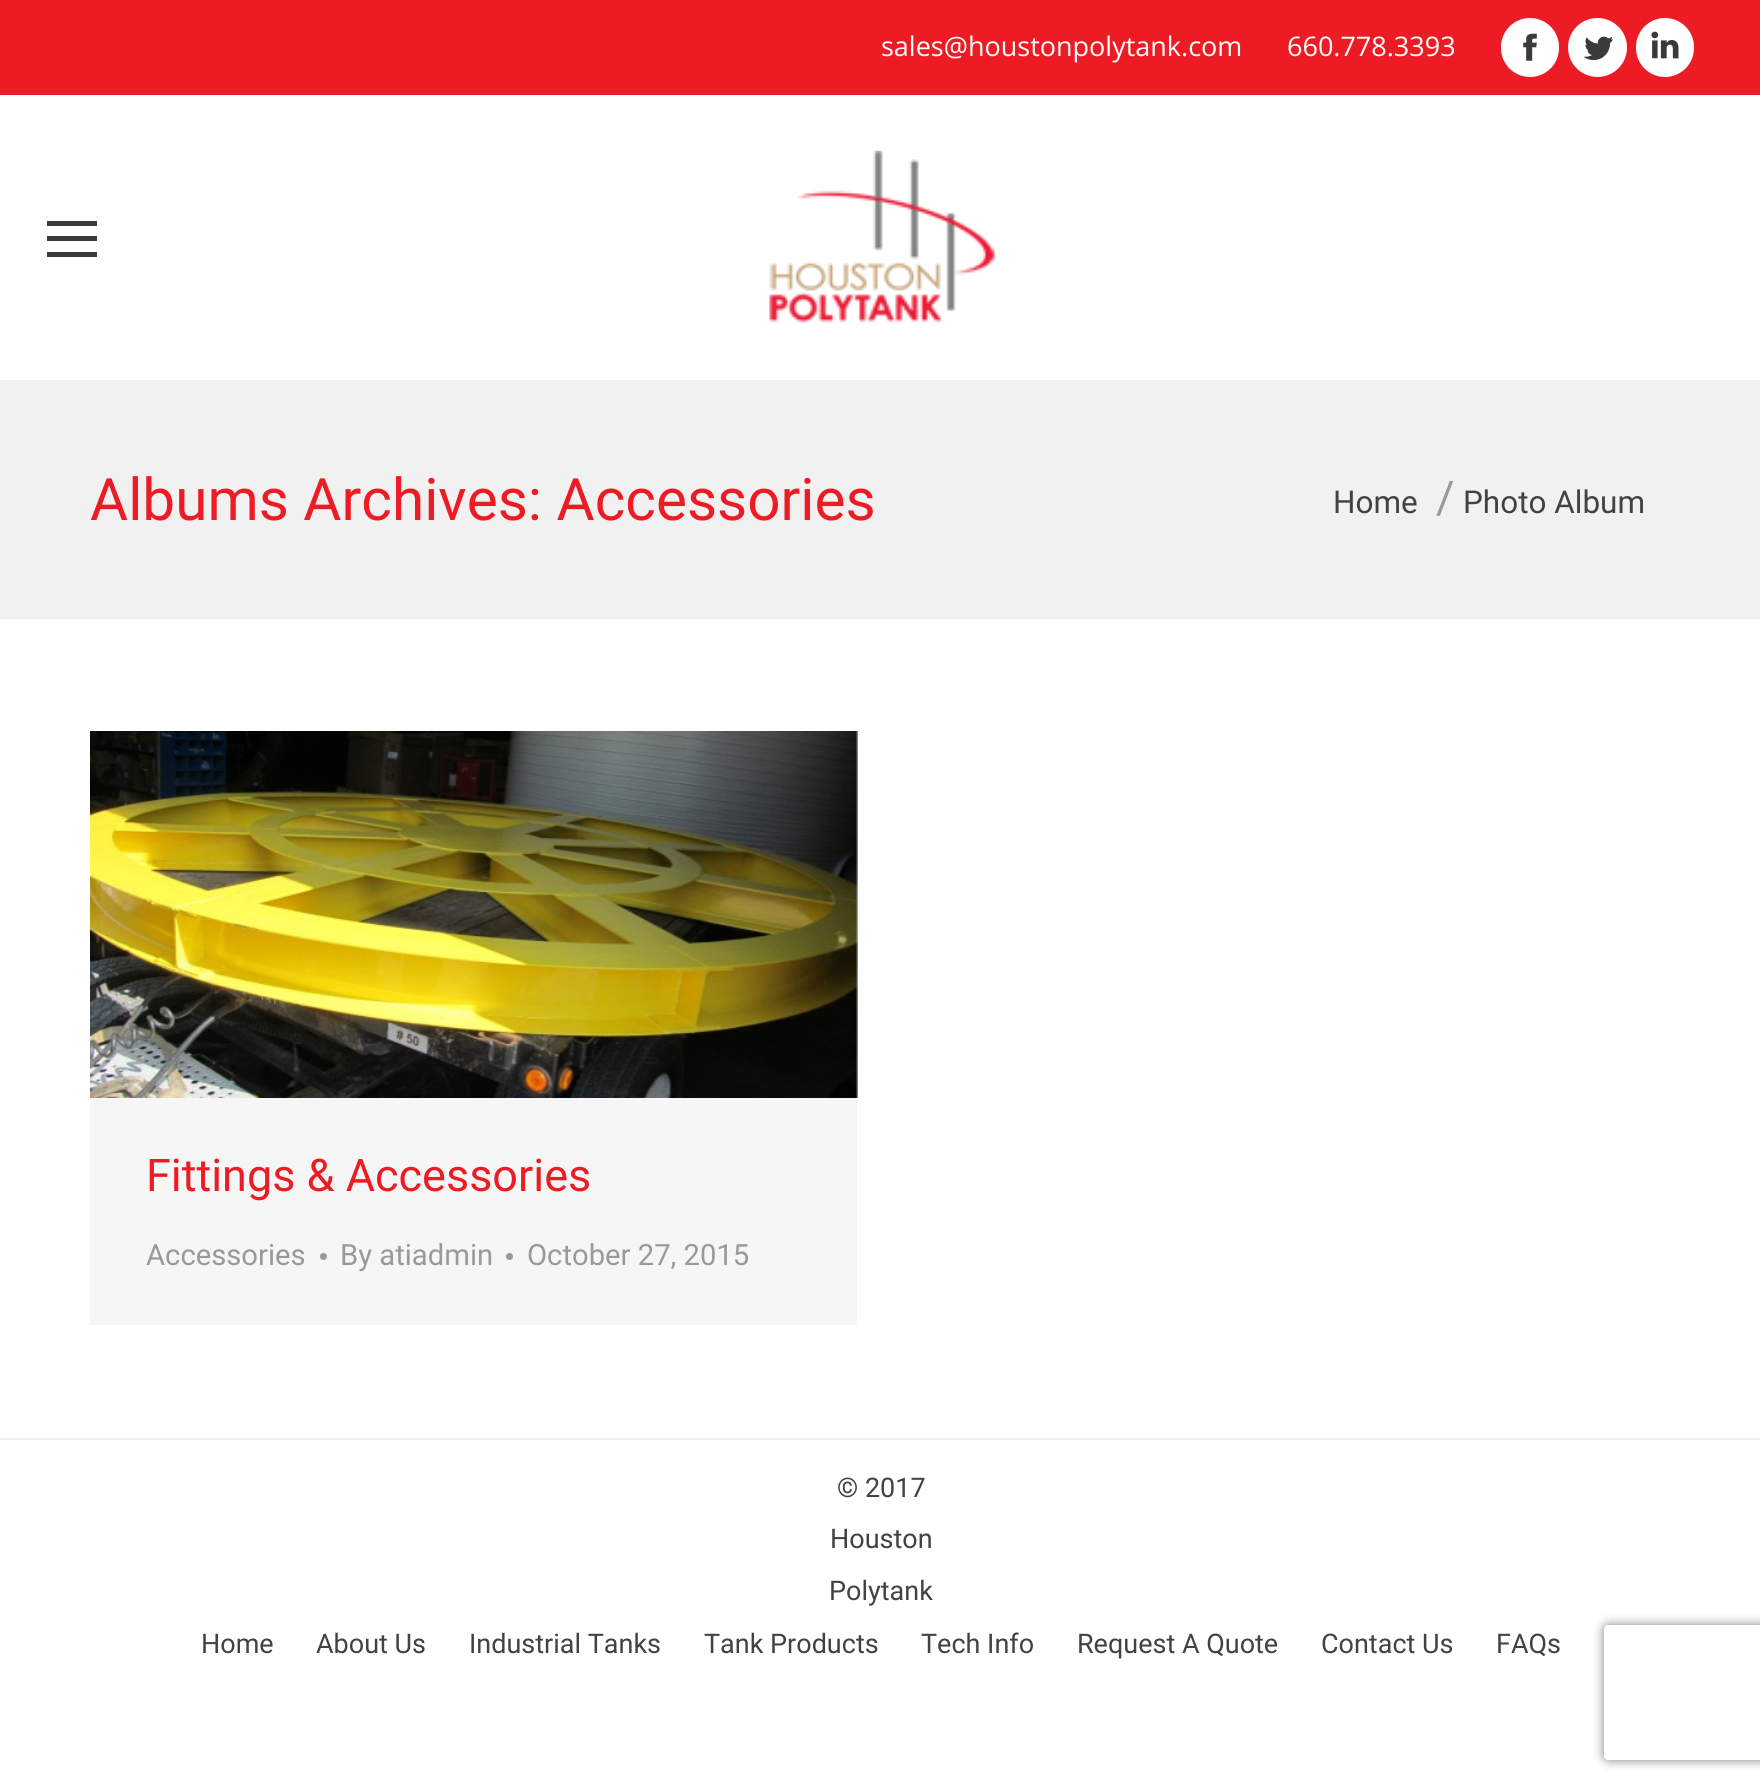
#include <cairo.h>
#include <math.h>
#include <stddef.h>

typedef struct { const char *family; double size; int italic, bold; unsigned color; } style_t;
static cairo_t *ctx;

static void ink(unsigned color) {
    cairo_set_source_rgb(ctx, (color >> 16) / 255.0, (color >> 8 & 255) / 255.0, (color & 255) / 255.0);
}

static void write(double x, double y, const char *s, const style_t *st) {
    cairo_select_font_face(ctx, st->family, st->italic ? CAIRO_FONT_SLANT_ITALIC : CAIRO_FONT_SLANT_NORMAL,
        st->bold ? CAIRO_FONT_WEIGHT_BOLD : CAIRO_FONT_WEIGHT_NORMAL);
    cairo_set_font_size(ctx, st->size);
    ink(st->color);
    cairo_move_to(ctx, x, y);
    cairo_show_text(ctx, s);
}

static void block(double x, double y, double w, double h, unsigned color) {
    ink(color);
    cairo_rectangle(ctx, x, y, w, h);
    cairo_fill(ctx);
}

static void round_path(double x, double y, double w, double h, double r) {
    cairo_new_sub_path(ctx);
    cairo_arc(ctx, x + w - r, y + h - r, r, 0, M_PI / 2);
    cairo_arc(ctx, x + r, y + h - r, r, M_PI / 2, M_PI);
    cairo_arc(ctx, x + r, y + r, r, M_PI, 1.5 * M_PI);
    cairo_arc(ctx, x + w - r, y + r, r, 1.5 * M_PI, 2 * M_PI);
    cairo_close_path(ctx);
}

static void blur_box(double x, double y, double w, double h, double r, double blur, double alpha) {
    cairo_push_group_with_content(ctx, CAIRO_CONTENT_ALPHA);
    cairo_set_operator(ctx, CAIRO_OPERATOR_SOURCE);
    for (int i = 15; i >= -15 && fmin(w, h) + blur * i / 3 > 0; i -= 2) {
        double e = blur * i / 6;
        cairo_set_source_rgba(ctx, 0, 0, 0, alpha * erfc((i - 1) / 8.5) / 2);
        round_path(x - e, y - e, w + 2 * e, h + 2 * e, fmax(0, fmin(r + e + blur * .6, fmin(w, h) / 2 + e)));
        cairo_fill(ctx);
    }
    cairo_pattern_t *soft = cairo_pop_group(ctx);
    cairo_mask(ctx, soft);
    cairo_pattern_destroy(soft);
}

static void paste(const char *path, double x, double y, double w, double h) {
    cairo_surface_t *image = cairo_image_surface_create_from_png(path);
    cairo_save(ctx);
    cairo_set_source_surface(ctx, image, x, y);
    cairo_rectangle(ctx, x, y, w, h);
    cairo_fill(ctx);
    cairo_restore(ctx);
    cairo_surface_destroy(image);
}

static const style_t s1 = {"Open Sans", 27, 0, 0, 0xffffff};
static const style_t s2 = {"Roboto", 58.5, 0, 0, 0xed1c24};
static const style_t s3 = {"Roboto", 31.5, 0, 0, 0x424242};
static const style_t s4 = {"Roboto", 45, 0, 0, 0x999999};
static const style_t s5 = {"Roboto", 45, 0, 0, 0xed1c24};
static const style_t s6 = {"Roboto", 29.25, 0, 0, 0x999999};
static const style_t s7 = {"Roboto", 27, 0, 0, 0x424242};

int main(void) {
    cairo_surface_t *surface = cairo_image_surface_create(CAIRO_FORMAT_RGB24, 1760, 1789);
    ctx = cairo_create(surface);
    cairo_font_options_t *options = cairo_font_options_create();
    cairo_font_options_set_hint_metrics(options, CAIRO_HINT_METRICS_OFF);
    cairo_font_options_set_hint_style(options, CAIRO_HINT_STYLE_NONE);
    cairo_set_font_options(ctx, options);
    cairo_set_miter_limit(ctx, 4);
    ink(0xffffff);
    cairo_paint(ctx);
    block(0, 0, 1760, 95, 0xed1c24);
    write(881, 56, "sales@houstonpolytank.com", &s1);
    write(1287, 56, "660.778.3393", &s1);
    round_path(1501, 18, 58, 59, 29);
    cairo_fill(ctx);
    paste("pic1.png", 1523, 33, 14, 28);
    cairo_arc(ctx, 1597.5, 47.5, 29.5, 0, 2 * M_PI);
    cairo_fill(ctx);
    paste("pic2.png", 1584, 36, 29, 25);
    round_path(1636, 18, 58, 59, 29);
    cairo_fill(ctx);
    paste("pic3.png", 1651, 31, 28, 28);
    block(47, 221, 50, 5, 0x3a3a3a);
    block(47, 236, 50, 5, 0x3a3a3a);
    block(47, 252, 50, 5, 0x3a3a3a);
    paste("pic4.png", 769, 150, 226, 173);
    block(0, 380, 1760, 239, 0xf1f1f1);
    write(90, 520, "Albums Archives: Accessories", &s2);
    write(1333, 513, "Home", &s3);
    write(1436, 513, "/", &s4);
    write(1463, 513, "Photo Album", &s3);
    block(90, 731, 767, 594, 0xf6f6f6);
    paste("pic5.png", 90, 731, 768, 367);
    write(146, 1191, "Fittings & Accessories", &s5);
    write(146, 1265, "Accessories", &s6);
    cairo_new_path(ctx);
    cairo_arc(ctx, 323.5, 1256.5, 3.5, 0, 2 * M_PI);
    cairo_fill(ctx);
    write(340, 1265, "By atiadmin", &s6);
    cairo_new_path(ctx);
    cairo_arc(ctx, 509.5, 1256.5, 3.5, 0, 2 * M_PI);
    cairo_fill(ctx);
    write(527, 1265, "October 27, 2015", &s6);
    block(0, 1438, 1760, 2, 0xf0f0f0);
    write(837, 1497, "© 2017", &s7);
    write(830, 1548, "Houston", &s7);
    write(829, 1600, "Polytank", &s7);
    write(201, 1653, "Home", &s7);
    write(316, 1653, "About Us", &s7);
    write(469, 1653, "Industrial Tanks", &s7);
    write(704, 1653, "Tank Products", &s7);
    write(921, 1653, "Tech Info", &s7);
    write(1077, 1653, "Request A Quote", &s7);
    write(1321, 1653, "Contact Us", &s7);
    write(1496, 1653, "FAQs", &s7);
    cairo_save(ctx);
    cairo_set_fill_rule(ctx, CAIRO_FILL_RULE_EVEN_ODD);
    cairo_new_path(ctx);
    cairo_move_to(ctx, 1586, 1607);
    cairo_line_to(ctx, 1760, 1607);
    cairo_line_to(ctx, 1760, 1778);
    cairo_line_to(ctx, 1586, 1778);
    cairo_close_path(ctx);
    cairo_move_to(ctx, 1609, 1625);
    cairo_line_to(ctx, 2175, 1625);
    cairo_curve_to(ctx, 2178, 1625, 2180, 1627, 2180, 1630);
    cairo_line_to(ctx, 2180, 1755);
    cairo_curve_to(ctx, 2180, 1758, 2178, 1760, 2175, 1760);
    cairo_line_to(ctx, 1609, 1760);
    cairo_curve_to(ctx, 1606, 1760, 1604, 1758, 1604, 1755);
    cairo_line_to(ctx, 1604, 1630);
    cairo_curve_to(ctx, 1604, 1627, 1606, 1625, 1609, 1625);
    cairo_close_path(ctx);
    cairo_clip(ctx);
    ink(0x808080);
    blur_box(1604, 1625, 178, 135, 5, 5.5, 1);
    cairo_restore(ctx);
    cairo_surface_write_to_png(surface, "screenshot.png");
    cairo_font_options_destroy(options);
    cairo_destroy(ctx);
    cairo_surface_destroy(surface);
    return 0;
}
